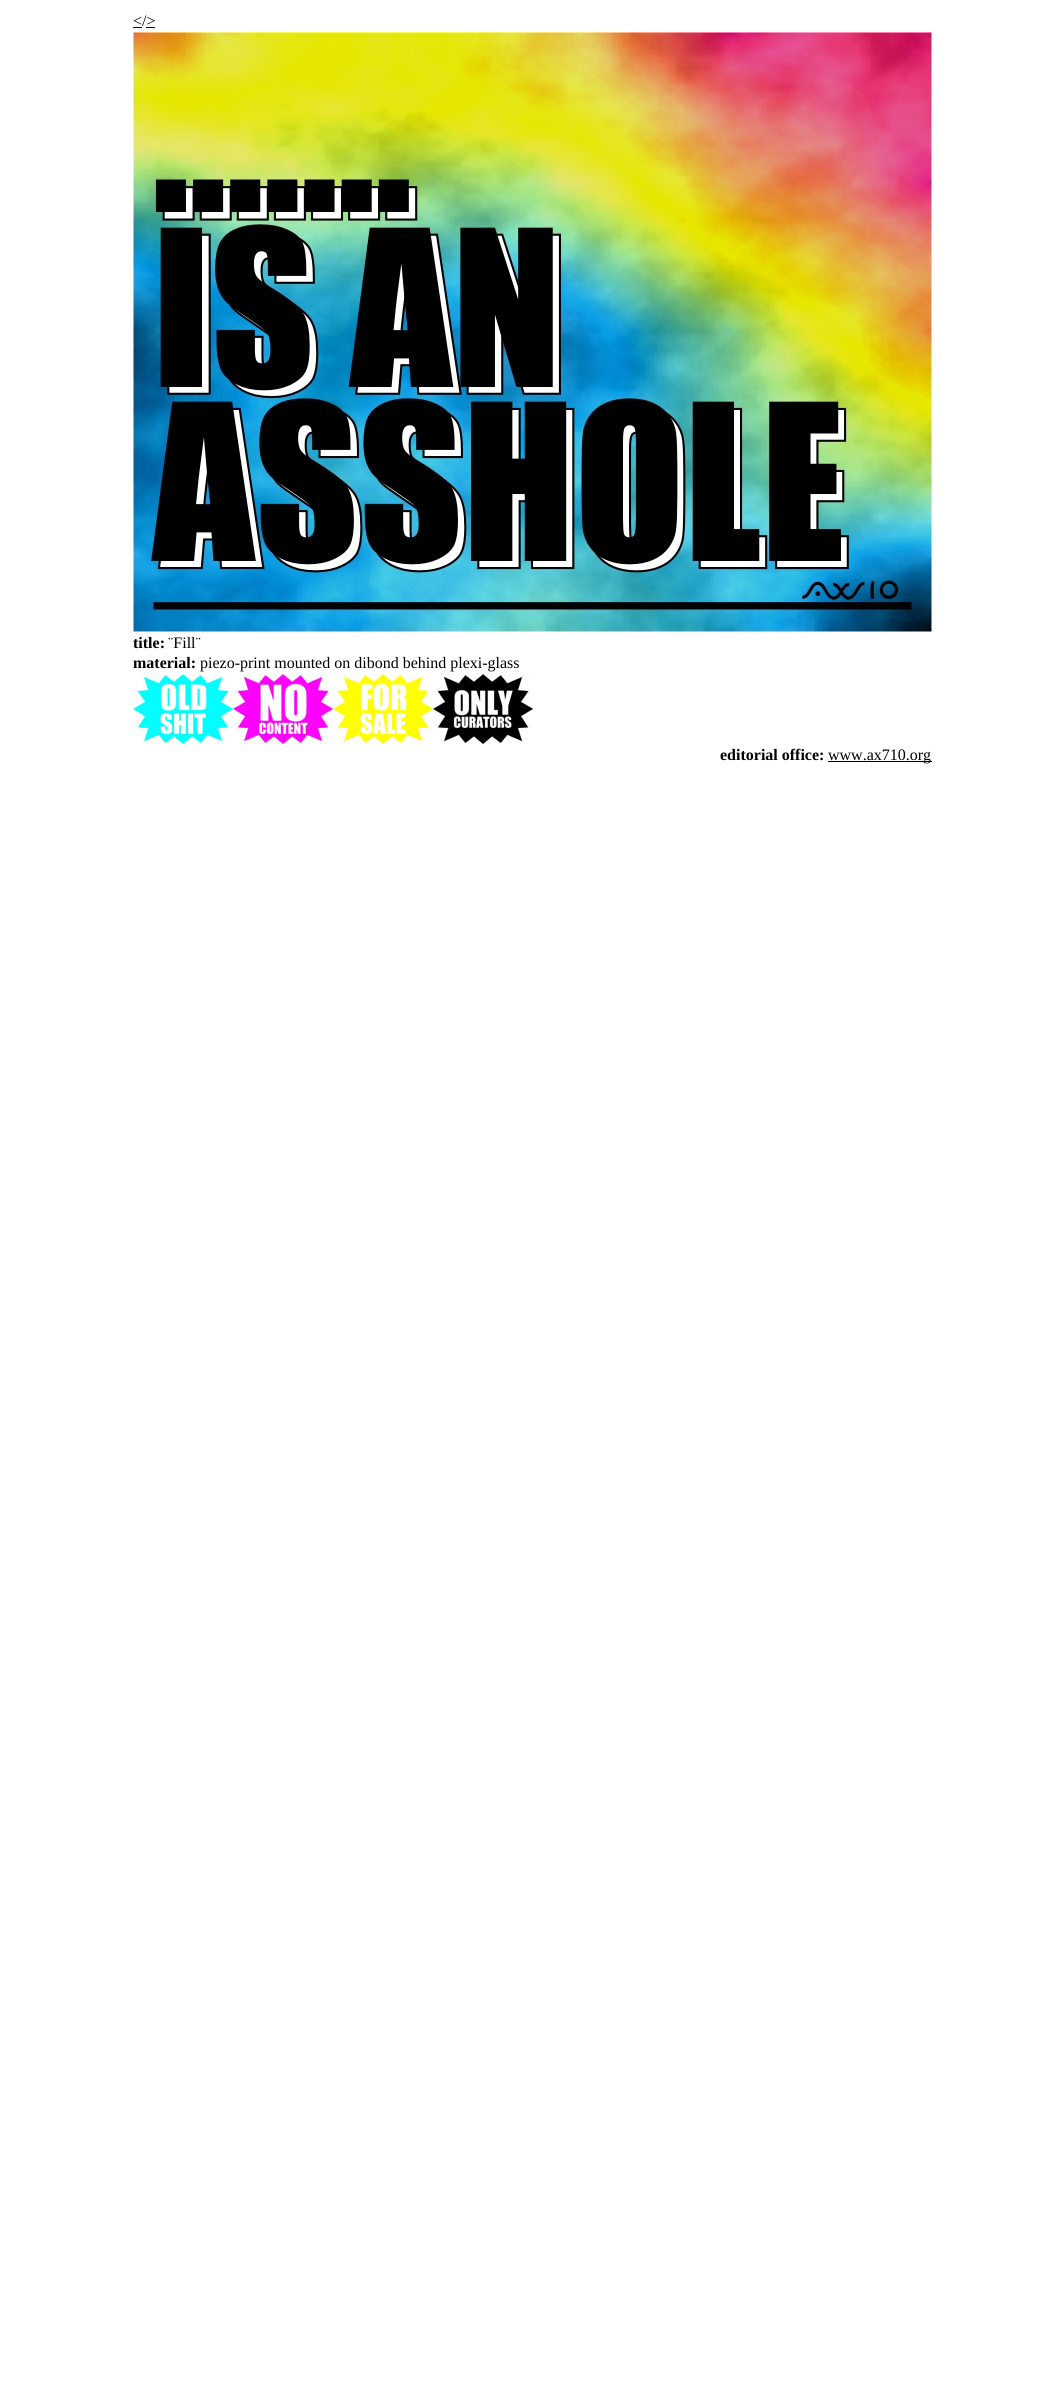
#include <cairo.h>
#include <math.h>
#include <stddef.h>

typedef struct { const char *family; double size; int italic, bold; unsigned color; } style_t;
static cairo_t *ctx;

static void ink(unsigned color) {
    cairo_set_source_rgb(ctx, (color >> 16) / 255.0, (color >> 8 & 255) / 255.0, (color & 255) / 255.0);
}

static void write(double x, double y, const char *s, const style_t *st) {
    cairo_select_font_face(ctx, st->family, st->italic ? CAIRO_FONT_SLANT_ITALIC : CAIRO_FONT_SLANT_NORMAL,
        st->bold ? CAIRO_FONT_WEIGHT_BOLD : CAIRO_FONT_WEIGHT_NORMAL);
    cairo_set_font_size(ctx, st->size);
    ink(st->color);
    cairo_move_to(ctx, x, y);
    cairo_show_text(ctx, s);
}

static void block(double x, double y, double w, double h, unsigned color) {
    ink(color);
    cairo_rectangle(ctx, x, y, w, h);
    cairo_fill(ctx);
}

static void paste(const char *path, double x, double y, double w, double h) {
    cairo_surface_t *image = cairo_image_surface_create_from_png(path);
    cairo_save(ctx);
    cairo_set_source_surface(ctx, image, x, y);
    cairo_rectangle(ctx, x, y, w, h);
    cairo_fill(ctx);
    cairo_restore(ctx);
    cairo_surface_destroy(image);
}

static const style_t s1 = {"Liberation Serif", 16, 0, 0, 0x000000};
static const style_t s2 = {"Liberation Serif", 16, 0, 1, 0x000000};

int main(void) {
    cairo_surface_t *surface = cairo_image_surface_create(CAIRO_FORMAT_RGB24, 1064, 2402);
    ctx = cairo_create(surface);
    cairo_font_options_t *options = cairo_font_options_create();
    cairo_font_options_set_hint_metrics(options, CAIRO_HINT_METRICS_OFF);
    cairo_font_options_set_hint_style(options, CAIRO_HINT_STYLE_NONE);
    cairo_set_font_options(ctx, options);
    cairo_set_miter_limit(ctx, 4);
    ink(0xffffff);
    cairo_paint(ctx);
    write(133, 26, "</>", &s1);
    block(133, 27, 9, 1, 0x000000);
    block(146, 27, 9, 1, 0x000000);
    paste("pic1.png", 133, 32, 799, 600);
    write(133, 648, "title:", &s2);
    write(168, 648, "¨Fill¨", &s1);
    write(133, 668, "material:", &s2);
    write(200, 668, "piezo-print mounted on dibond behind plexi-glass", &s1);
    paste("pic2.png", 133, 674, 100, 70);
    paste("pic3.png", 233, 674, 100, 70);
    paste("pic4.png", 333, 674, 100, 70);
    paste("pic5.png", 433, 674, 100, 70);
    write(720, 760, "editorial office:", &s2);
    block(828, 761, 104, 1, 0x000000);
    write(828, 760, "www.ax710.org", &s1);
    cairo_surface_write_to_png(surface, "screenshot.png");
    cairo_font_options_destroy(options);
    cairo_destroy(ctx);
    cairo_surface_destroy(surface);
    return 0;
}
